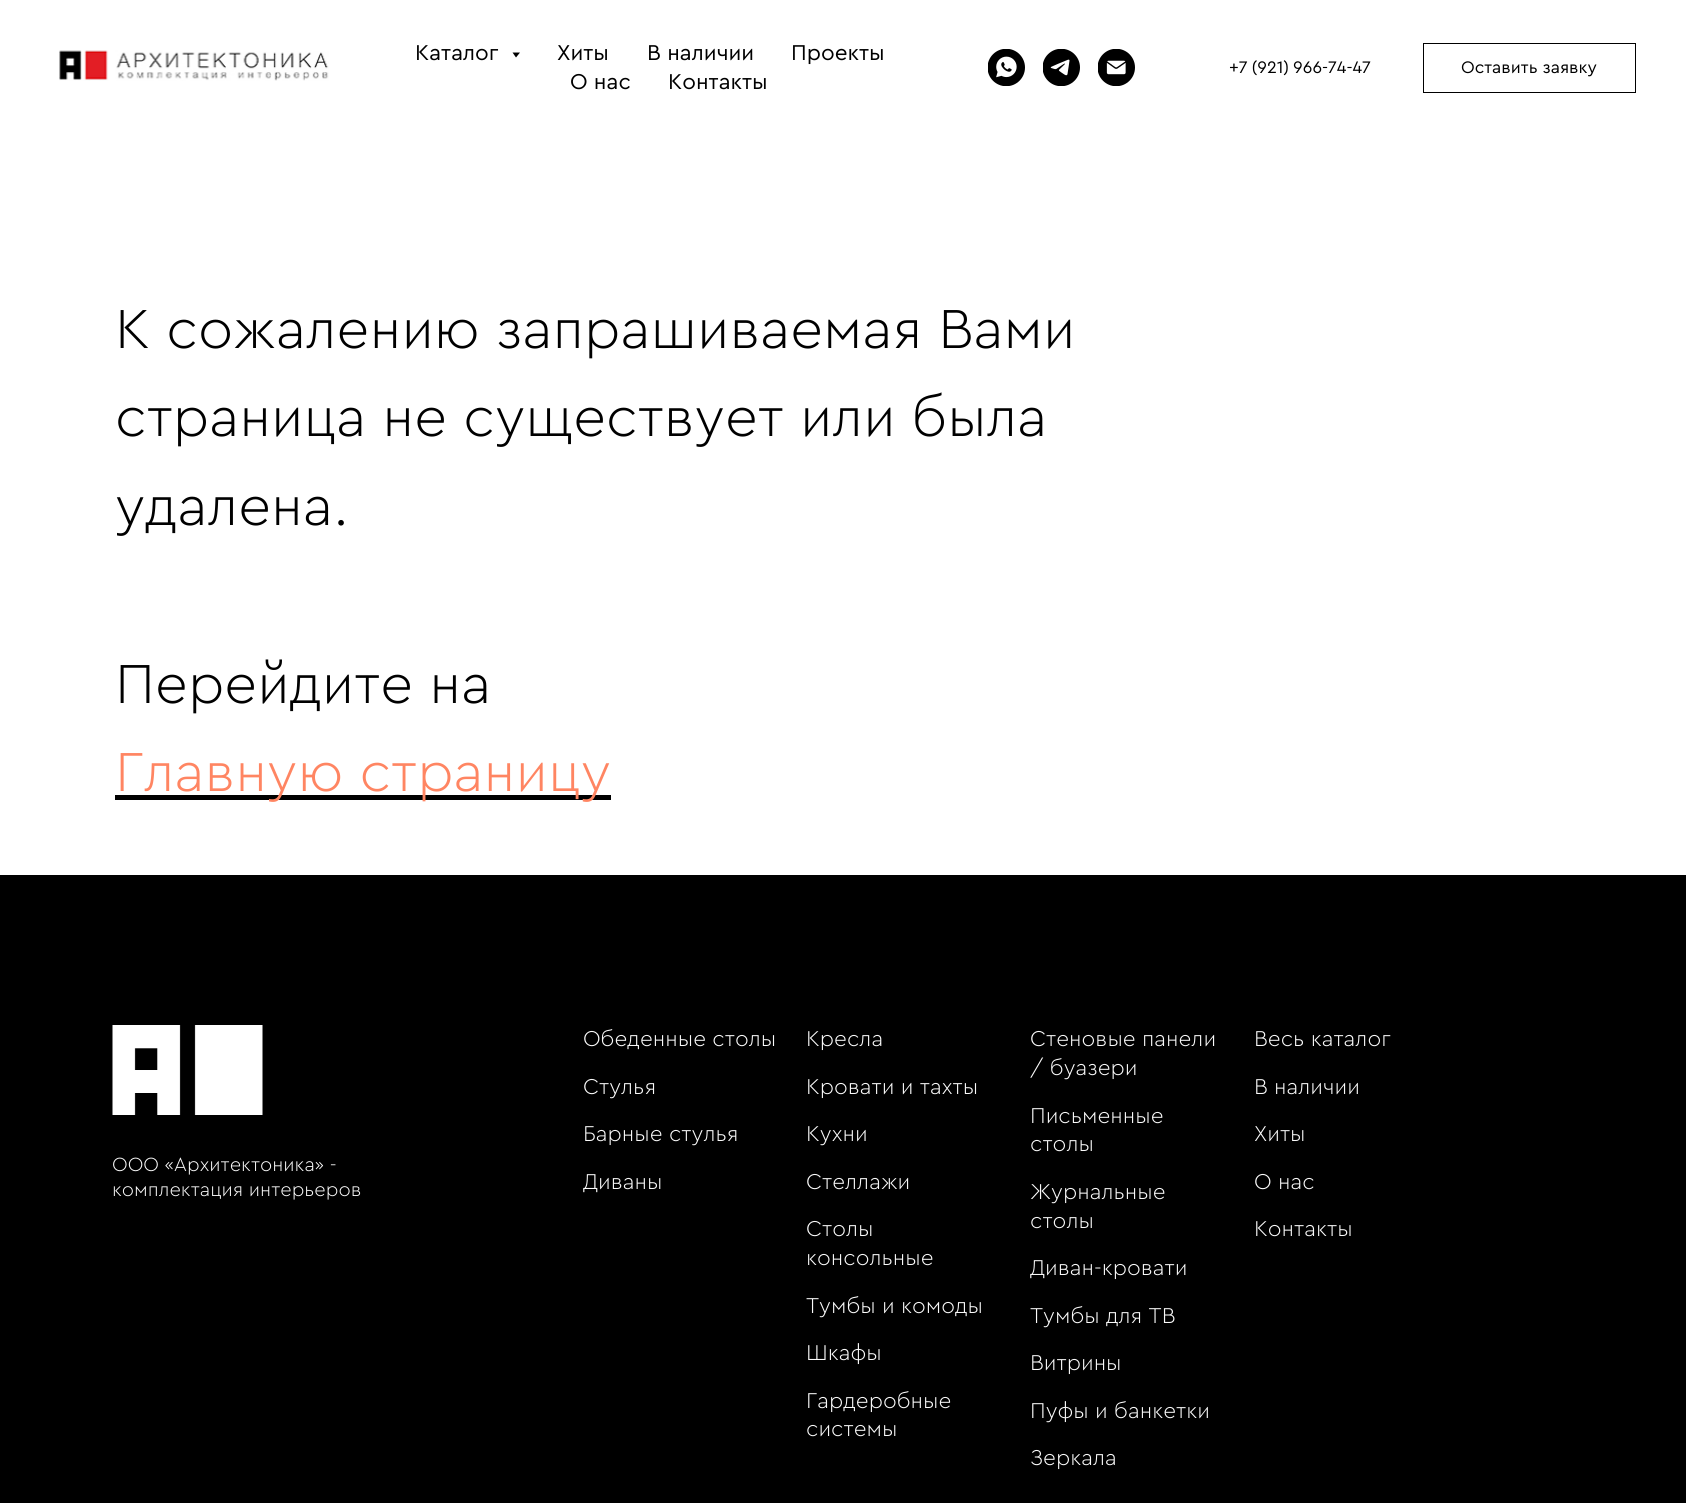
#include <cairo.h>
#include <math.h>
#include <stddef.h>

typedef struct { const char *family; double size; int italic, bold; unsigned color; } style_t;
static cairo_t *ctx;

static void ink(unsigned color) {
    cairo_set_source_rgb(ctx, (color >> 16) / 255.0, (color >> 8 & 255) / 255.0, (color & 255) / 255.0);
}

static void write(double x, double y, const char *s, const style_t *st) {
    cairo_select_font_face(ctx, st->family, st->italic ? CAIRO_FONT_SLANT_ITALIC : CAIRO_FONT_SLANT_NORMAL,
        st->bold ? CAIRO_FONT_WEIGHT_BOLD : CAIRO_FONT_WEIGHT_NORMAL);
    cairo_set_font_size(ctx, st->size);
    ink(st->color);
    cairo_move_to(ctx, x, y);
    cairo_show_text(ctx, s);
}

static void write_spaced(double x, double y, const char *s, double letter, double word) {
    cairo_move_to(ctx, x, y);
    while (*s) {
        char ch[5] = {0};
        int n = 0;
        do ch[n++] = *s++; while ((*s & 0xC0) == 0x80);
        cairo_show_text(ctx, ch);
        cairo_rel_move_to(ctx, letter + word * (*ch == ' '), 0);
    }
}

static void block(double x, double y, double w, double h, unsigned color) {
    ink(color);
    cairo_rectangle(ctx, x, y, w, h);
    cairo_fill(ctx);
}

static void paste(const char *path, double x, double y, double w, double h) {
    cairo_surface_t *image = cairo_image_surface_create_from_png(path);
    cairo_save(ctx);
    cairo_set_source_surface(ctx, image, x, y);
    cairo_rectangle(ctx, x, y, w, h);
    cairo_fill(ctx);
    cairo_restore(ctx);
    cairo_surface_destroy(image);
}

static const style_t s1 = {"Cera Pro", 22.5, 0, 0, 0x000000};
static const style_t s2 = {"Cera Pro", 17.5, 0, 0, 0x000000};
static const style_t s3 = {"Cera Pro Light", 57.5, 0, 0, 0x000000};
static const style_t s4 = {"Cera Pro Light", 57.5, 0, 0, 0xff8562};
static const style_t s5 = {"Cera Pro Light", 20, 0, 0, 0xfafafa};
static const style_t s6 = {"Cera Pro Light", 22.5, 0, 0, 0xfafafa};

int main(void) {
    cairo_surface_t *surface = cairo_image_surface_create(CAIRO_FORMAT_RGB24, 1686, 1503);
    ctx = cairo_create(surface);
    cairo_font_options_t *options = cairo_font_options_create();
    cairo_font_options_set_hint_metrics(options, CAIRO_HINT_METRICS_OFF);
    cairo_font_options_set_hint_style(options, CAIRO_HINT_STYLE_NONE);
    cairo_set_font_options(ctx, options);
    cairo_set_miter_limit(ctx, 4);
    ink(0xffffff);
    cairo_paint(ctx);
    paste("pic1.png", 59, 50, 270, 31);
    write(415, 60, "Каталог", &s1);
    cairo_new_path(ctx);
    cairo_move_to(ctx, 512.5, 52.5);
    cairo_line_to(ctx, 520, 52.5);
    cairo_line_to(ctx, 516, 57.5);
    cairo_close_path(ctx);
    cairo_fill(ctx);
    write(557, 60, "Хиты", &s1);
    write(647, 60, "В наличии", &s1);
    write(791, 60, "Проекты", &s1);
    write(570, 89, "О нас", &s1);
    write(668, 89, "Контакты", &s1);
    paste("pic2.png", 988, 49, 37, 37);
    paste("pic3.png", 1043, 49, 37, 37);
    paste("pic4.png", 1098, 49, 37, 37);
    cairo_set_font_size(ctx, 17.5);
    write_spaced(1229, 73, "+7 (921) 966-74-47", 0, -1);
    cairo_rectangle(ctx, 1423.5, 43.5, 212, 49);
    cairo_set_line_width(ctx, 1);
    cairo_stroke(ctx);
    write(1461, 73, "Оставить заявку", &s2);
    write(115, 348, "К сожалению запрашиваемая Вами", &s3);
    write(115, 436, "страница не существует или была", &s3);
    write(115, 525, "удалена.", &s3);
    write(115, 703, "Перейдите на", &s3);
    block(115, 795, 496, 5, 0x000000);
    write(115, 791, "Главную страницу", &s4);
    block(0, 875, 1686, 628, 0x000000);
    paste("pic5.png", 112, 1025, 151, 90);
    write(112, 1171, "ООО «Архитектоника» -", &s5);
    write(112, 1196, "комплектация интерьеров", &s5);
    write(583, 1046, "Обеденные столы", &s6);
    write(583, 1094, "Стулья", &s6);
    write(583, 1141, "Барные стулья", &s6);
    write(583, 1189, "Диваны", &s6);
    write(806, 1046, "Кресла", &s6);
    write(806, 1094, "Кровати и тахты", &s6);
    write(806, 1141, "Кухни", &s6);
    write(806, 1189, "Стеллажи", &s6);
    write(806, 1236, "Столы", &s6);
    write(806, 1265, "консольные", &s6);
    write(806, 1313, "Тумбы и комоды", &s6);
    write(806, 1360, "Шкафы", &s6);
    write(806, 1408, "Гардеробные", &s6);
    write(806, 1436, "системы", &s6);
    write(1030, 1046, "Стеновые панели", &s6);
    write(1030, 1075, "/ буазери", &s6);
    write(1030, 1123, "Письменные", &s6);
    write(1030, 1151, "столы", &s6);
    write(1030, 1199, "Журнальные", &s6);
    write(1030, 1228, "столы", &s6);
    write(1030, 1275, "Диван-кровати", &s6);
    write(1030, 1323, "Тумбы для ТВ", &s6);
    write(1030, 1370, "Витрины", &s6);
    write(1030, 1418, "Пуфы и банкетки", &s6);
    write(1030, 1465, "Зеркала", &s6);
    write(1254, 1046, "Весь каталог", &s6);
    write(1254, 1094, "В наличии", &s6);
    write(1254, 1141, "Хиты", &s6);
    write(1254, 1189, "О нас", &s6);
    write(1254, 1236, "Контакты", &s6);
    cairo_surface_write_to_png(surface, "screenshot.png");
    cairo_font_options_destroy(options);
    cairo_destroy(ctx);
    cairo_surface_destroy(surface);
    return 0;
}
